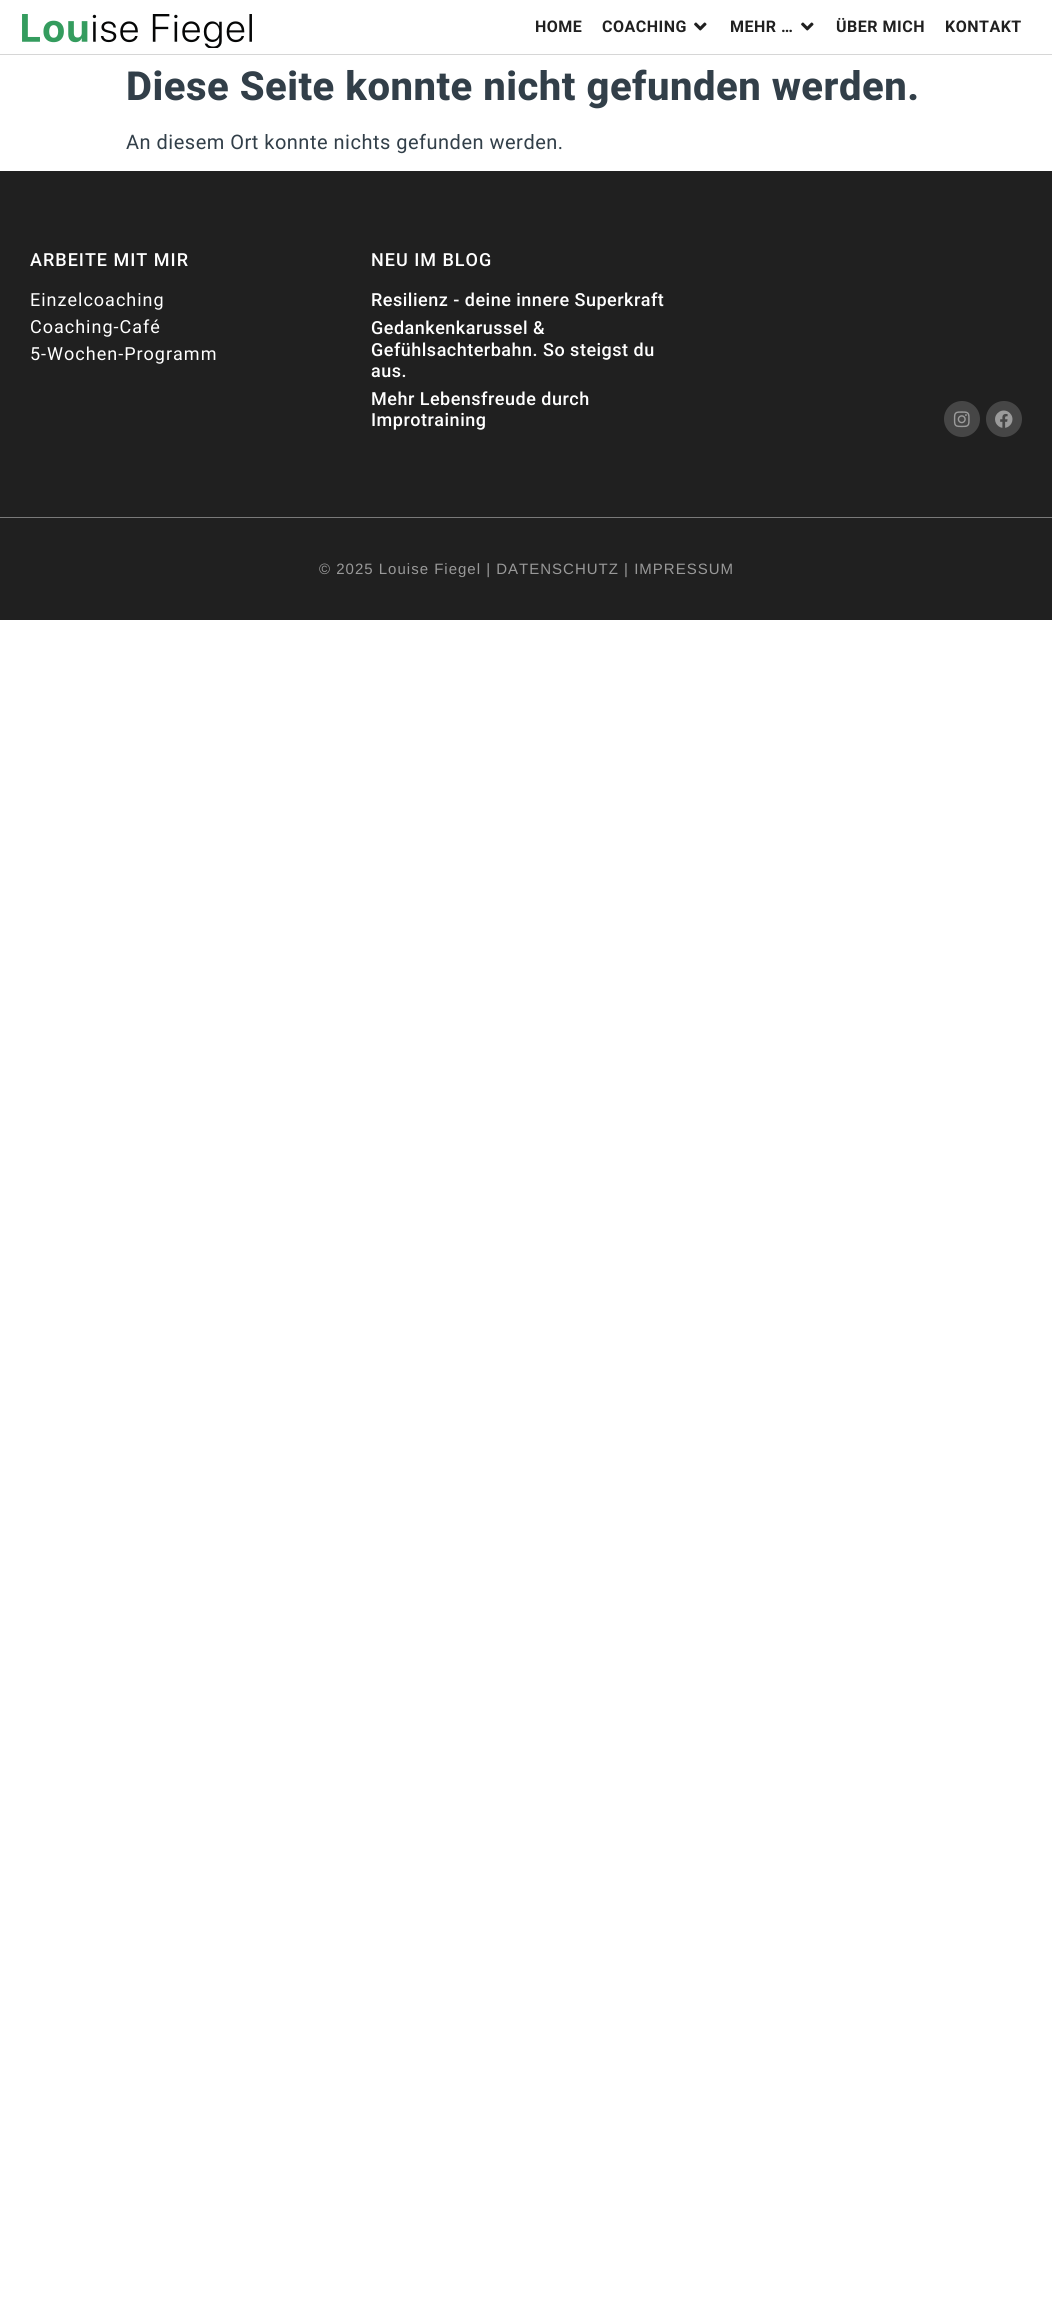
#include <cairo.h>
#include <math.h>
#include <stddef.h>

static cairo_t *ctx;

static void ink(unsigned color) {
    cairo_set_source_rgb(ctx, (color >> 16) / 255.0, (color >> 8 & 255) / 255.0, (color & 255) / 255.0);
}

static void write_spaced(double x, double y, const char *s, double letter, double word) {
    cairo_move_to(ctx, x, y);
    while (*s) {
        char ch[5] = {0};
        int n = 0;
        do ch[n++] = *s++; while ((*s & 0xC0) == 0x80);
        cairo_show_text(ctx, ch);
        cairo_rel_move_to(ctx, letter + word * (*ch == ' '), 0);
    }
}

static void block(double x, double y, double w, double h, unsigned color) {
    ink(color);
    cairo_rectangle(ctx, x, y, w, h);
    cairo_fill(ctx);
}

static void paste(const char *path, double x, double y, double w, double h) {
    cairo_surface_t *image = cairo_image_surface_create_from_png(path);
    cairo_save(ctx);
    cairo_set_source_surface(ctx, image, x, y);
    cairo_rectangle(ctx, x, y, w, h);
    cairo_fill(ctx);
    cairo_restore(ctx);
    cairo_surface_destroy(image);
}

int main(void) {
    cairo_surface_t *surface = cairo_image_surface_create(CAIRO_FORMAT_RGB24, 1052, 2309);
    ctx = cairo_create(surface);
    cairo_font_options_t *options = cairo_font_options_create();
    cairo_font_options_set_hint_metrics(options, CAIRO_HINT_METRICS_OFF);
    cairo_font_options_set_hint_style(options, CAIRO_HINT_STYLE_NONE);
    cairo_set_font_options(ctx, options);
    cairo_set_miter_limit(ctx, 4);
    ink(0xffffff);
    cairo_paint(ctx);
    block(0, 54, 1052, 1, 0xd6d6d6);
    paste("pic1.png", 22, 14, 230, 34);
    cairo_select_font_face(ctx, "Roboto", CAIRO_FONT_SLANT_NORMAL, CAIRO_FONT_WEIGHT_BOLD);
    cairo_set_font_size(ctx, 16);
    ink(0x202020);
    write_spaced(535, 32, "HOME", 0.5, 0);
    write_spaced(602, 32, "COACHING", 0.5, 0);
    paste("pic2.png", 694, 22, 13, 9);
    write_spaced(730, 32, "MEHR …", 0.5, 0);
    paste("pic2.png", 801, 22, 13, 9);
    write_spaced(836, 32, "ÜBER MICH", 0.5, 0);
    write_spaced(945, 32, "KONTAKT", 0.5, 0);
    cairo_select_font_face(ctx, "Roboto ExtraBold", CAIRO_FONT_SLANT_NORMAL, CAIRO_FONT_WEIGHT_NORMAL);
    cairo_set_font_size(ctx, 40);
    ink(0x323f49);
    write_spaced(126, 100, "Diese Seite konnte nicht gefunden werden.", 0.5, 0);
    cairo_select_font_face(ctx, "Roboto", CAIRO_FONT_SLANT_NORMAL, CAIRO_FONT_WEIGHT_NORMAL);
    cairo_set_font_size(ctx, 20);
    write_spaced(126, 149, "An diesem Ort konnte nichts gefunden werden.", 0.5, 0);
    block(0, 171, 1052, 346, 0x202020);
    cairo_select_font_face(ctx, "Roboto Medium", CAIRO_FONT_SLANT_NORMAL, CAIRO_FONT_WEIGHT_NORMAL);
    cairo_set_font_size(ctx, 18);
    ink(0xffffff);
    write_spaced(30, 266, "ARBEITE MIT MIR", 1, 0);
    cairo_select_font_face(ctx, "Roboto", CAIRO_FONT_SLANT_NORMAL, CAIRO_FONT_WEIGHT_NORMAL);
    write_spaced(30, 306, "Einzelcoaching", 1, 0);
    write_spaced(30, 333, "Coaching-Café", 1, 0);
    write_spaced(30, 360, "5-Wochen-Programm", 1, 0);
    cairo_select_font_face(ctx, "Roboto Medium", CAIRO_FONT_SLANT_NORMAL, CAIRO_FONT_WEIGHT_NORMAL);
    write_spaced(371, 266, "NEU IM BLOG", 1, 0);
    write_spaced(371, 306, "Resilienz - deine innere Superkraft", 0.5, 0);
    write_spaced(371, 334, "Gedankenkarussel &", 0.5, 0);
    write_spaced(371, 356, "Gefühlsachterbahn. So steigst du", 0.5, 0);
    write_spaced(371, 377, "aus.", 0.5, 0);
    write_spaced(371, 405, "Mehr Lebensfreude durch", 0.5, 0);
    write_spaced(371, 426, "Improtraining", 0.5, 0);
    ink(0x464646);
    cairo_new_path(ctx);
    cairo_arc(ctx, 962, 419, 18, 0, 2 * M_PI);
    cairo_fill(ctx);
    paste("pic3.png", 953, 411, 17, 17);
    cairo_arc(ctx, 1004, 419, 18, 0, 2 * M_PI);
    cairo_fill(ctx);
    paste("pic4.png", 995, 410, 18, 18);
    block(0, 518, 1052, 102, 0x202020);
    block(0, 517, 1052, 1, 0x7a7a7a);
    cairo_select_font_face(ctx, "Liberation Sans", CAIRO_FONT_SLANT_NORMAL, CAIRO_FONT_WEIGHT_NORMAL);
    cairo_set_font_size(ctx, 15);
    ink(0x999999);
    write_spaced(319, 574, "© 2025 Louise Fiegel | DATENSCHUTZ | IMPRESSUM", 1, 0);
    cairo_surface_write_to_png(surface, "screenshot.png");
    cairo_font_options_destroy(options);
    cairo_destroy(ctx);
    cairo_surface_destroy(surface);
    return 0;
}
